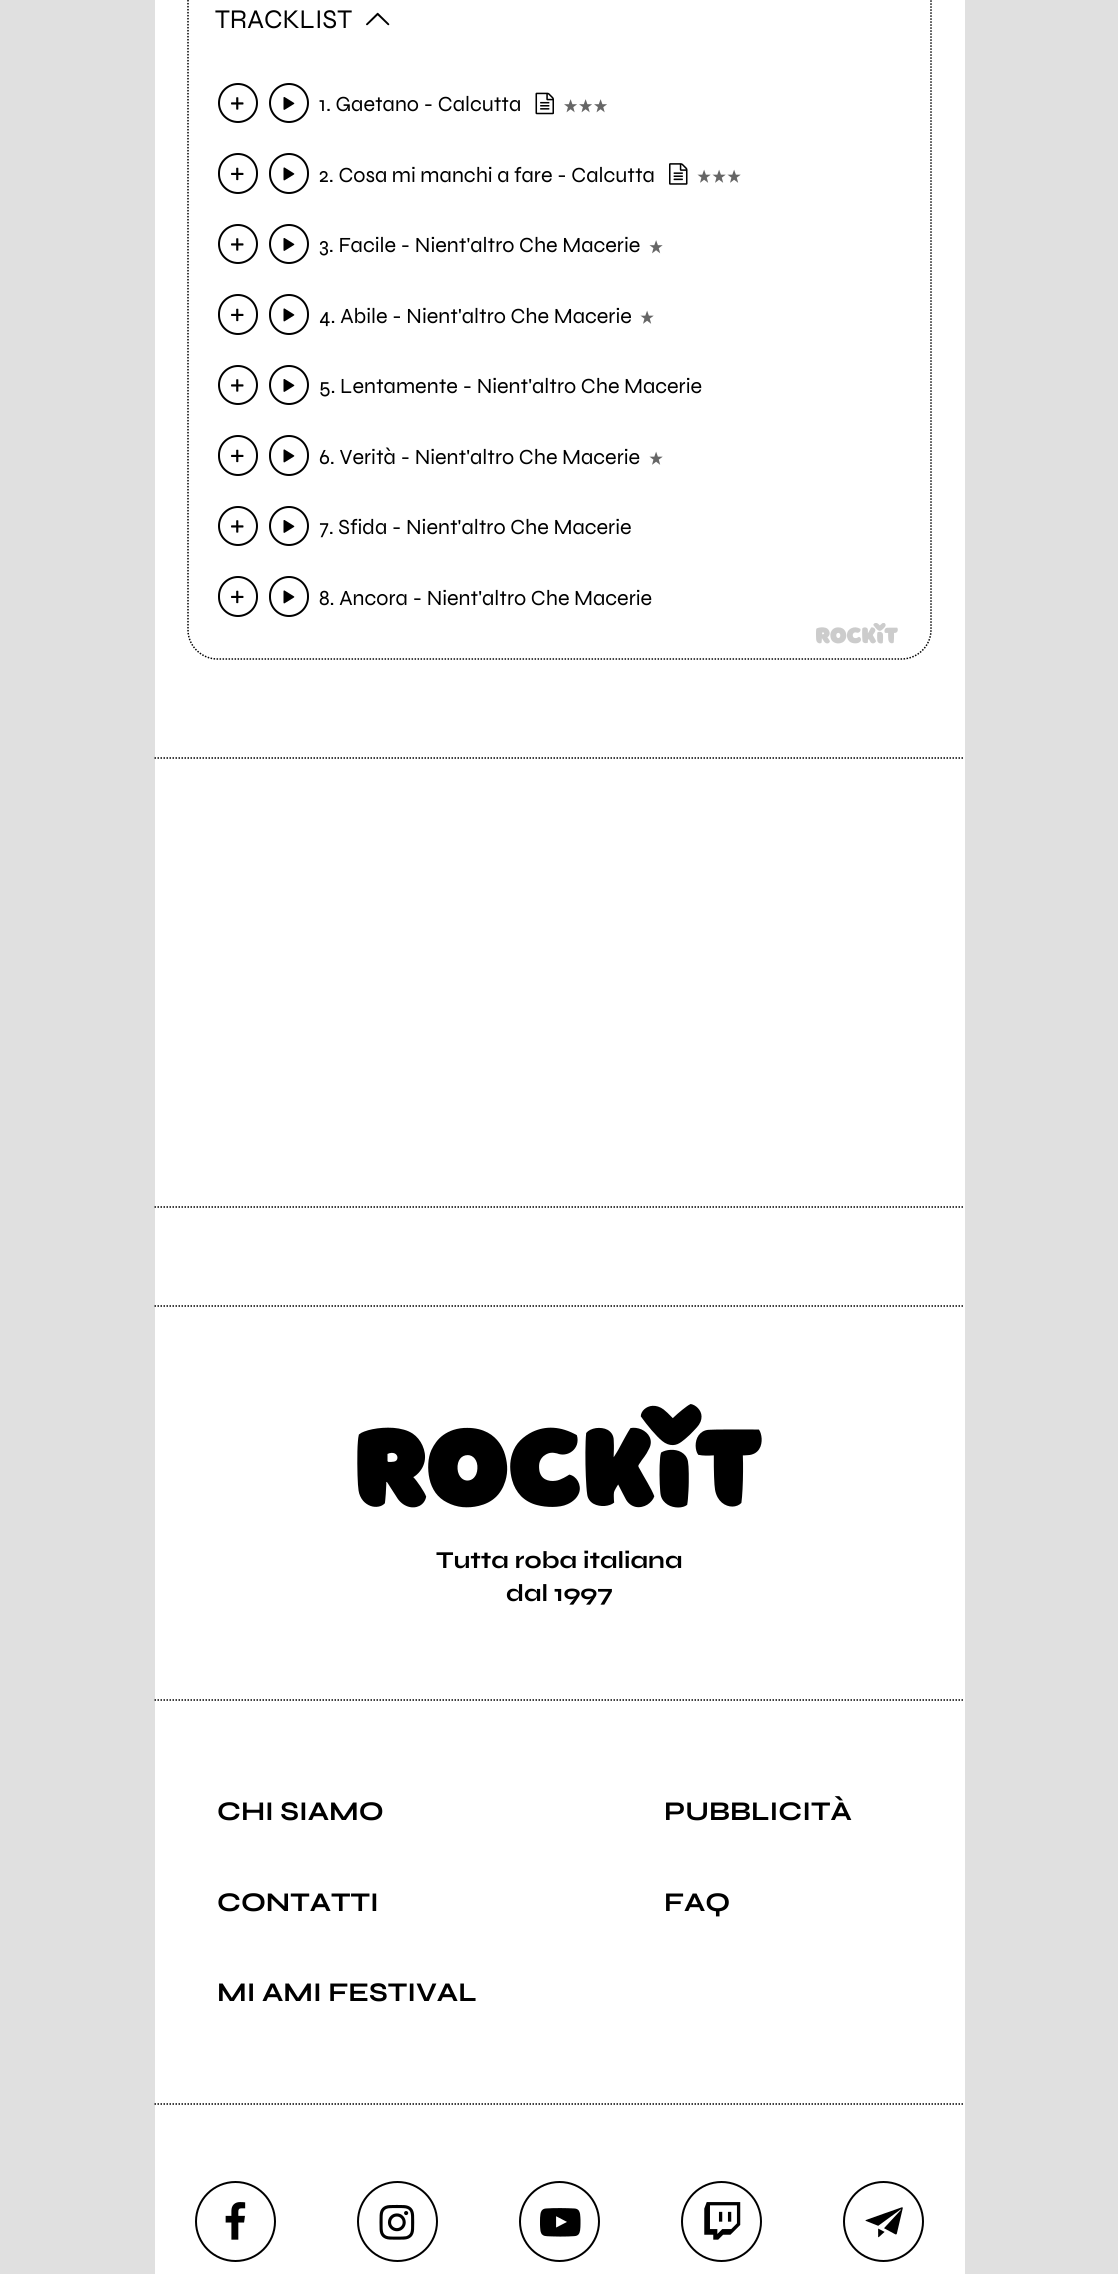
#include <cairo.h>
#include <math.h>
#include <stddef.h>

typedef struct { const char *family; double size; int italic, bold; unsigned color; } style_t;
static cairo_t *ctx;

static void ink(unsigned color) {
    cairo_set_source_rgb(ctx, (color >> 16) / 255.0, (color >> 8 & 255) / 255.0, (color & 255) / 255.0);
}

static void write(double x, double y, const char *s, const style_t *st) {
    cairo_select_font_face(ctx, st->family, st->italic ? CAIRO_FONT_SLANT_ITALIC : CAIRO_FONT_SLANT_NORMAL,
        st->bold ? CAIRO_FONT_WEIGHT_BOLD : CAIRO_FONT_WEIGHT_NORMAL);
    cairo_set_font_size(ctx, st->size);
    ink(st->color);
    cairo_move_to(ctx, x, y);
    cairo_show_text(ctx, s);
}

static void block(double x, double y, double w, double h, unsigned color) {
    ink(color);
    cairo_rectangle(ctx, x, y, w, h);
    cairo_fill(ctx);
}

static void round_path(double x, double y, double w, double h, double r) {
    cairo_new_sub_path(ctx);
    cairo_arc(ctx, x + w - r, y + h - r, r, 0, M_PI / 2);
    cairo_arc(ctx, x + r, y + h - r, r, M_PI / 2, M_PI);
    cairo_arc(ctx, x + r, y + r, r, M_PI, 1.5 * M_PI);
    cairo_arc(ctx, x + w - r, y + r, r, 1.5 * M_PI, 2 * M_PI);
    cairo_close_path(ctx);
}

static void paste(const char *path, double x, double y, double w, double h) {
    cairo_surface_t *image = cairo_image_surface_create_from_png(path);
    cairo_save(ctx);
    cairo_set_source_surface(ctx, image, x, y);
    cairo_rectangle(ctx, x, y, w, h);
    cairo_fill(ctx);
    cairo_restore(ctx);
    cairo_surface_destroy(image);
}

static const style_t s1 = {"Syne", 27, 0, 0, 0x000000};
static const style_t s2 = {"Syne", 21.6, 0, 0, 0x000000};
static const style_t s3 = {"Syne", 24.25, 0, 1, 0x000000};
static const style_t s4 = {"Syne", 27, 0, 1, 0x000000};

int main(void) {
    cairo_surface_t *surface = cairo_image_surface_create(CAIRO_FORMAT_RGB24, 1118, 2274);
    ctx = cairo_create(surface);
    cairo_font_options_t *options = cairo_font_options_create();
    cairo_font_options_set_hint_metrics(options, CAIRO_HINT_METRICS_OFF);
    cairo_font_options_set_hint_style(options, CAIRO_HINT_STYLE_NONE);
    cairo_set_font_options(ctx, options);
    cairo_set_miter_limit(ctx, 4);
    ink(0xe0e0e0);
    cairo_paint(ctx);
    block(155, 0, 810, 2274, 0xffffff);
    cairo_new_path(ctx);
    cairo_move_to(ctx, 217.5, -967);
    cairo_line_to(ctx, 901.5, -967);
    cairo_curve_to(ctx, 917.5, -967, 931, -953.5, 931, -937.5);
    cairo_line_to(ctx, 931, 630);
    cairo_curve_to(ctx, 931, 646, 917.5, 659, 901.5, 659);
    cairo_line_to(ctx, 217.5, 659);
    cairo_curve_to(ctx, 201.5, 659, 188, 646, 188, 630);
    cairo_line_to(ctx, 188, -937.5);
    cairo_curve_to(ctx, 188, -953.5, 201.5, -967, 217.5, -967);
    cairo_close_path(ctx);
    ink(0x000000);
    cairo_set_line_width(ctx, 1.5);
    cairo_set_dash(ctx, (double[]){1.5, 1.5}, 2, 0);
    cairo_stroke(ctx);
    write(215, 28, "TRACKLIST", &s1);
    paste("pic1.png", 366, 12, 24, 14);
    cairo_arc(ctx, 238, 103, 19, 0, 2 * M_PI);
    cairo_set_line_width(ctx, 2);
    cairo_set_dash(ctx, NULL, 0, 0);
    cairo_stroke(ctx);
    paste("pic2.png", 231, 97, 13, 13);
    cairo_arc(ctx, 289, 103, 19, 0, 2 * M_PI);
    cairo_stroke(ctx);
    paste("pic3.png", 283, 97, 12, 13);
    write(319, 111, "1. Gaetano - Calcutta", &s2);
    paste("pic4.png", 535, 92, 19, 23);
    paste("pic5.png", 564, 99, 13, 14);
    paste("pic5.png", 579, 99, 13, 14);
    paste("pic5.png", 594, 99, 13, 14);
    round_path(219, 154, 38, 39, 19);
    cairo_stroke(ctx);
    paste("pic6.png", 231, 167, 13, 14);
    round_path(270, 154, 38, 39, 19);
    cairo_stroke(ctx);
    paste("pic7.png", 283, 167, 12, 14);
    write(319, 182, "2. Cosa mi manchi a fare - Calcutta", &s2);
    paste("pic8.png", 669, 163, 19, 22);
    paste("pic9.png", 697, 169, 14, 14);
    paste("pic9.png", 712, 169, 14, 14);
    paste("pic9.png", 727, 169, 14, 14);
    cairo_arc(ctx, 238, 244, 19, 0, 2 * M_PI);
    cairo_stroke(ctx);
    paste("pic2.png", 231, 238, 13, 13);
    cairo_arc(ctx, 289, 244, 19, 0, 2 * M_PI);
    cairo_stroke(ctx);
    paste("pic3.png", 283, 238, 12, 13);
    write(319, 252, "3. Facile - Nient'altro Che Macerie", &s2);
    paste("pic10.png", 649, 240, 14, 14);
    round_path(219, 295, 38, 39, 19);
    cairo_stroke(ctx);
    paste("pic6.png", 231, 308, 13, 14);
    round_path(270, 295, 38, 39, 19);
    cairo_stroke(ctx);
    paste("pic7.png", 283, 308, 12, 14);
    write(319, 323, "4. Abile - Nient'altro Che Macerie", &s2);
    paste("pic9.png", 640, 310, 14, 14);
    cairo_arc(ctx, 238, 385, 19, 0, 2 * M_PI);
    cairo_stroke(ctx);
    paste("pic2.png", 231, 379, 13, 13);
    cairo_arc(ctx, 289, 385, 19, 0, 2 * M_PI);
    cairo_stroke(ctx);
    paste("pic3.png", 283, 379, 12, 13);
    write(319, 393, "5. Lentamente - Nient'altro Che Macerie", &s2);
    round_path(219, 436, 38, 39, 19);
    cairo_stroke(ctx);
    paste("pic6.png", 231, 449, 13, 14);
    round_path(270, 436, 38, 39, 19);
    cairo_stroke(ctx);
    paste("pic7.png", 283, 449, 12, 14);
    write(319, 464, "6. Verità - Nient'altro Che Macerie", &s2);
    paste("pic9.png", 649, 451, 14, 14);
    cairo_arc(ctx, 238, 526, 19, 0, 2 * M_PI);
    cairo_stroke(ctx);
    paste("pic2.png", 231, 520, 13, 13);
    cairo_arc(ctx, 289, 526, 19, 0, 2 * M_PI);
    cairo_stroke(ctx);
    paste("pic3.png", 283, 520, 12, 13);
    write(319, 534, "7. Sfida - Nient'altro Che Macerie", &s2);
    round_path(219, 577, 38, 39, 19);
    cairo_stroke(ctx);
    paste("pic6.png", 231, 590, 13, 14);
    round_path(270, 577, 38, 39, 19);
    cairo_stroke(ctx);
    paste("pic7.png", 283, 590, 12, 14);
    write(319, 605, "8. Ancora - Nient'altro Che Macerie", &s2);
    paste("pic11.png", 816, 623, 82, 21);
    cairo_new_path(ctx);
    cairo_move_to(ctx, 154.5, 758);
    cairo_line_to(ctx, 964.5, 758);
    cairo_set_line_width(ctx, 1.5);
    cairo_set_dash(ctx, (double[]){1.5, 1.5}, 2, 0);
    cairo_stroke(ctx);
    cairo_new_path(ctx);
    cairo_move_to(ctx, 154.5, 1207);
    cairo_line_to(ctx, 964.5, 1207);
    cairo_stroke(ctx);
    cairo_new_path(ctx);
    cairo_move_to(ctx, 154.5, 1306);
    cairo_line_to(ctx, 964.5, 1306);
    cairo_stroke(ctx);
    paste("pic12.png", 357, 1404, 405, 104);
    write(436, 1568, "Tutta roba italiana", &s3);
    write(506, 1601, "dal 1997", &s3);
    cairo_new_path(ctx);
    cairo_move_to(ctx, 154.5, 1700);
    cairo_line_to(ctx, 964.5, 1700);
    cairo_stroke(ctx);
    cairo_new_path(ctx);
    cairo_move_to(ctx, 154.5, 2104);
    cairo_line_to(ctx, 964.5, 2104);
    cairo_stroke(ctx);
    write(217, 1820, "CHI SIAMO", &s4);
    write(664, 1820, "PUBBLICITÀ", &s4);
    write(217, 1911, "CONTATTI", &s4);
    write(664, 1911, "FAQ", &s4);
    write(217, 2001, "MI AMI FESTIVAL", &s4);
    cairo_new_path(ctx);
    cairo_arc(ctx, 235.5, 2221.5, 39.5, 0, 2 * M_PI);
    cairo_set_line_width(ctx, 2);
    cairo_set_dash(ctx, NULL, 0, 0);
    cairo_stroke(ctx);
    paste("pic13.png", 225, 2202, 21, 38);
    cairo_arc(ctx, 397.5, 2221.5, 39.5, 0, 2 * M_PI);
    cairo_stroke(ctx);
    paste("pic14.png", 379, 2204, 36, 36);
    cairo_arc(ctx, 559.5, 2221.5, 39.5, 0, 2 * M_PI);
    cairo_stroke(ctx);
    paste("pic15.png", 540, 2208, 41, 29);
    cairo_arc(ctx, 721.5, 2221.5, 39.5, 0, 2 * M_PI);
    cairo_stroke(ctx);
    paste("pic16.png", 704, 2202, 37, 38);
    cairo_arc(ctx, 883.5, 2221.5, 39.5, 0, 2 * M_PI);
    cairo_stroke(ctx);
    paste("pic17.png", 865, 2207, 38, 31);
    cairo_surface_write_to_png(surface, "screenshot.png");
    cairo_font_options_destroy(options);
    cairo_destroy(ctx);
    cairo_surface_destroy(surface);
    return 0;
}
